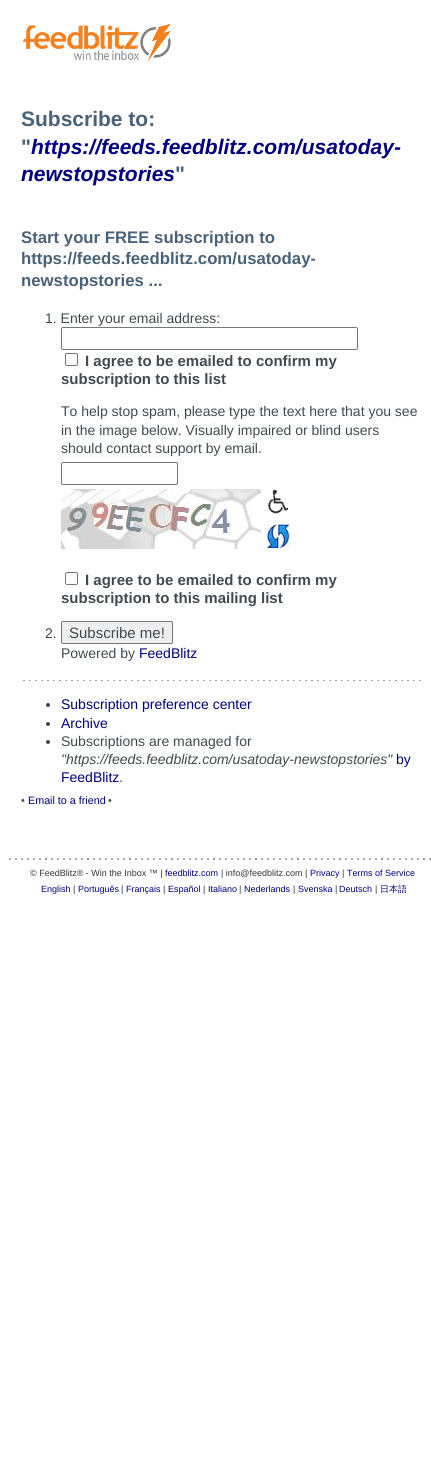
#include <cairo.h>
#include <math.h>
#include <stddef.h>

typedef struct { const char *family; double size; int italic, bold; unsigned color; } style_t;
static cairo_t *ctx;

static void ink(unsigned color) {
    cairo_set_source_rgb(ctx, (color >> 16) / 255.0, (color >> 8 & 255) / 255.0, (color & 255) / 255.0);
}

static void write(double x, double y, const char *s, const style_t *st) {
    cairo_select_font_face(ctx, st->family, st->italic ? CAIRO_FONT_SLANT_ITALIC : CAIRO_FONT_SLANT_NORMAL,
        st->bold ? CAIRO_FONT_WEIGHT_BOLD : CAIRO_FONT_WEIGHT_NORMAL);
    cairo_set_font_size(ctx, st->size);
    ink(st->color);
    cairo_move_to(ctx, x, y);
    cairo_show_text(ctx, s);
}

static void round_path(double x, double y, double w, double h, double r) {
    cairo_new_sub_path(ctx);
    cairo_arc(ctx, x + w - r, y + h - r, r, 0, M_PI / 2);
    cairo_arc(ctx, x + r, y + h - r, r, M_PI / 2, M_PI);
    cairo_arc(ctx, x + r, y + r, r, M_PI, 1.5 * M_PI);
    cairo_arc(ctx, x + w - r, y + r, r, 1.5 * M_PI, 2 * M_PI);
    cairo_close_path(ctx);
}

static void paste(const char *path, double x, double y, double w, double h) {
    cairo_surface_t *image = cairo_image_surface_create_from_png(path);
    cairo_save(ctx);
    cairo_set_source_surface(ctx, image, x, y);
    cairo_rectangle(ctx, x, y, w, h);
    cairo_fill(ctx);
    cairo_restore(ctx);
    cairo_surface_destroy(image);
}

static const style_t s1 = {"Liberation Sans", 21, 0, 1, 0x4a6279};
static const style_t s2 = {"Liberation Sans", 21, 1, 1, 0x000080};
static const style_t s3 = {"Liberation Sans", 16.75, 0, 1, 0x4a6279};
static const style_t s4 = {"Liberation Sans", 14, 0, 0, 0x3f4a50};
static const style_t s5 = {"Liberation Sans", 15, 0, 1, 0x3f4a50};
static const style_t s6 = {"Liberation Sans", 15, 0, 0, 0x3f4a50};
static const style_t s7 = {"Liberation Sans", 14, 0, 0, 0x000080};
static const style_t s8 = {"Liberation Sans", 14, 1, 0, 0x3f4a50};
static const style_t s9 = {"Liberation Sans", 10.75, 0, 0, 0x3f4a50};
static const style_t s10 = {"Liberation Sans", 10.75, 0, 0, 0x000080};
static const style_t s11 = {"Liberation Sans", 9, 0, 0, 0x333333};
static const style_t s12 = {"Liberation Sans", 9, 0, 0, 0x000080};
static const style_t s13 = {"WenQuanYi Zen Hei Medium", 9, 0, 0, 0x000080};

int main(void) {
    cairo_surface_t *surface = cairo_image_surface_create(CAIRO_FORMAT_RGB24, 431, 1482);
    ctx = cairo_create(surface);
    cairo_font_options_t *options = cairo_font_options_create();
    cairo_font_options_set_hint_metrics(options, CAIRO_HINT_METRICS_OFF);
    cairo_font_options_set_hint_style(options, CAIRO_HINT_STYLE_NONE);
    cairo_set_font_options(ctx, options);
    cairo_set_miter_limit(ctx, 4);
    ink(0xffffff);
    cairo_paint(ctx);
    paste("pic1.png", 22, 23, 149, 39);
    write(21, 126, "Subscribe to:", &s1);
    write(21, 154, "\"", &s1);
    write(31, 154, "https://feeds.feedblitz.com/usatoday-", &s2);
    write(21, 181, "newstopstories", &s2);
    write(175, 181, "\"", &s1);
    write(21, 243, "Start your FREE subscription to", &s3);
    write(21, 264, "https://feeds.feedblitz.com/usatoday-", &s3);
    write(21, 286, "newstopstories ...", &s3);
    write(45, 323, "1. Enter your email address:", &s4);
    round_path(61.5, 327.5, 296, 22, 1.5);
    ink(0x767676);
    cairo_set_line_width(ctx, 1);
    cairo_stroke(ctx);
    round_path(65.5, 353.5, 12, 12, 1.5);
    cairo_stroke(ctx);
    write(85, 366, "I agree to be emailed to confirm my", &s5);
    write(61, 384, "subscription to this list", &s5);
    write(61, 416, "To help stop spam, please type the text here that you see", &s4);
    write(61, 435, "in the image below. Visually impaired or blind users", &s4);
    write(61, 453, "should contact support by email.", &s4);
    round_path(61.5, 462.5, 116, 22, 1.5);
    ink(0x767676);
    cairo_stroke(ctx);
    paste("pic2.png", 61, 489, 200, 60);
    paste("pic3.png", 268, 489, 20, 25);
    paste("pic4.png", 266, 524, 24, 24);
    round_path(65.5, 572.5, 12, 12, 1.5);
    cairo_stroke(ctx);
    write(85, 585, "I agree to be emailed to confirm my", &s5);
    write(61, 603, "subscription to this mailing list", &s5);
    write(45, 638, "2.", &s4);
    ink(0xefefef);
    round_path(61.5, 621.5, 111, 22, 1.5);
    cairo_fill_preserve(ctx);
    ink(0x767676);
    cairo_stroke(ctx);
    write(69, 638, "Subscribe me!", &s6);
    write(61, 658, "Powered by", &s4);
    write(139, 658, "FeedBlitz", &s7);
    paste("pic5.png", 23, 680, 398, 1);
    ink(0x3f4a50);
    cairo_arc(ctx, 48, 705, 2, 0, 2 * M_PI);
    cairo_fill(ctx);
    write(61, 709, "Subscription preference center", &s7);
    ink(0x3f4a50);
    cairo_new_path(ctx);
    cairo_arc(ctx, 48, 724, 2, 0, 2 * M_PI);
    cairo_fill(ctx);
    write(61, 728, "Archive", &s7);
    ink(0x3f4a50);
    cairo_new_path(ctx);
    cairo_arc(ctx, 48, 742, 2, 0, 2 * M_PI);
    cairo_fill(ctx);
    write(61, 746, "Subscriptions are managed for", &s4);
    write(61, 764, "\"https://feeds.feedblitz.com/usatoday-newstopstories\"", &s8);
    write(396, 764, "by", &s7);
    write(61, 782, "FeedBlitz", &s7);
    write(119, 782, ".", &s4);
    write(21, 804, "•", &s9);
    write(28, 804, "Email to a friend", &s10);
    write(108, 804, "•", &s9);
    paste("pic6.png", 9, 858, 422, 2);
    write(30, 876, "© FeedBlitz® - Win the Inbox ™ |", &s11);
    write(165, 876, "feedblitz.com", &s12);
    write(221, 876, "| info@feedblitz.com |", &s11);
    write(310, 876, "Privacy", &s12);
    write(342, 876, "|", &s11);
    write(347, 876, "Terms of Service", &s12);
    write(41, 892, "English", &s12);
    write(73, 892, "|", &s11);
    write(78, 892, "Português", &s12);
    write(121, 892, "|", &s11);
    write(126, 892, "Français", &s12);
    write(163, 892, "|", &s11);
    write(168, 892, "Español", &s12);
    write(203, 892, "|", &s11);
    write(208, 892, "Italiano", &s12);
    write(239, 892, "|", &s11);
    write(244, 892, "Nederlands", &s12);
    write(293, 892, "|", &s11);
    write(298, 892, "Svenska", &s12);
    write(335, 892, "|", &s11);
    write(339, 892, "Deutsch", &s12);
    write(375, 892, "|", &s11);
    write(380, 892, "日本語", &s13);
    cairo_surface_write_to_png(surface, "screenshot.png");
    cairo_font_options_destroy(options);
    cairo_destroy(ctx);
    cairo_surface_destroy(surface);
    return 0;
}
